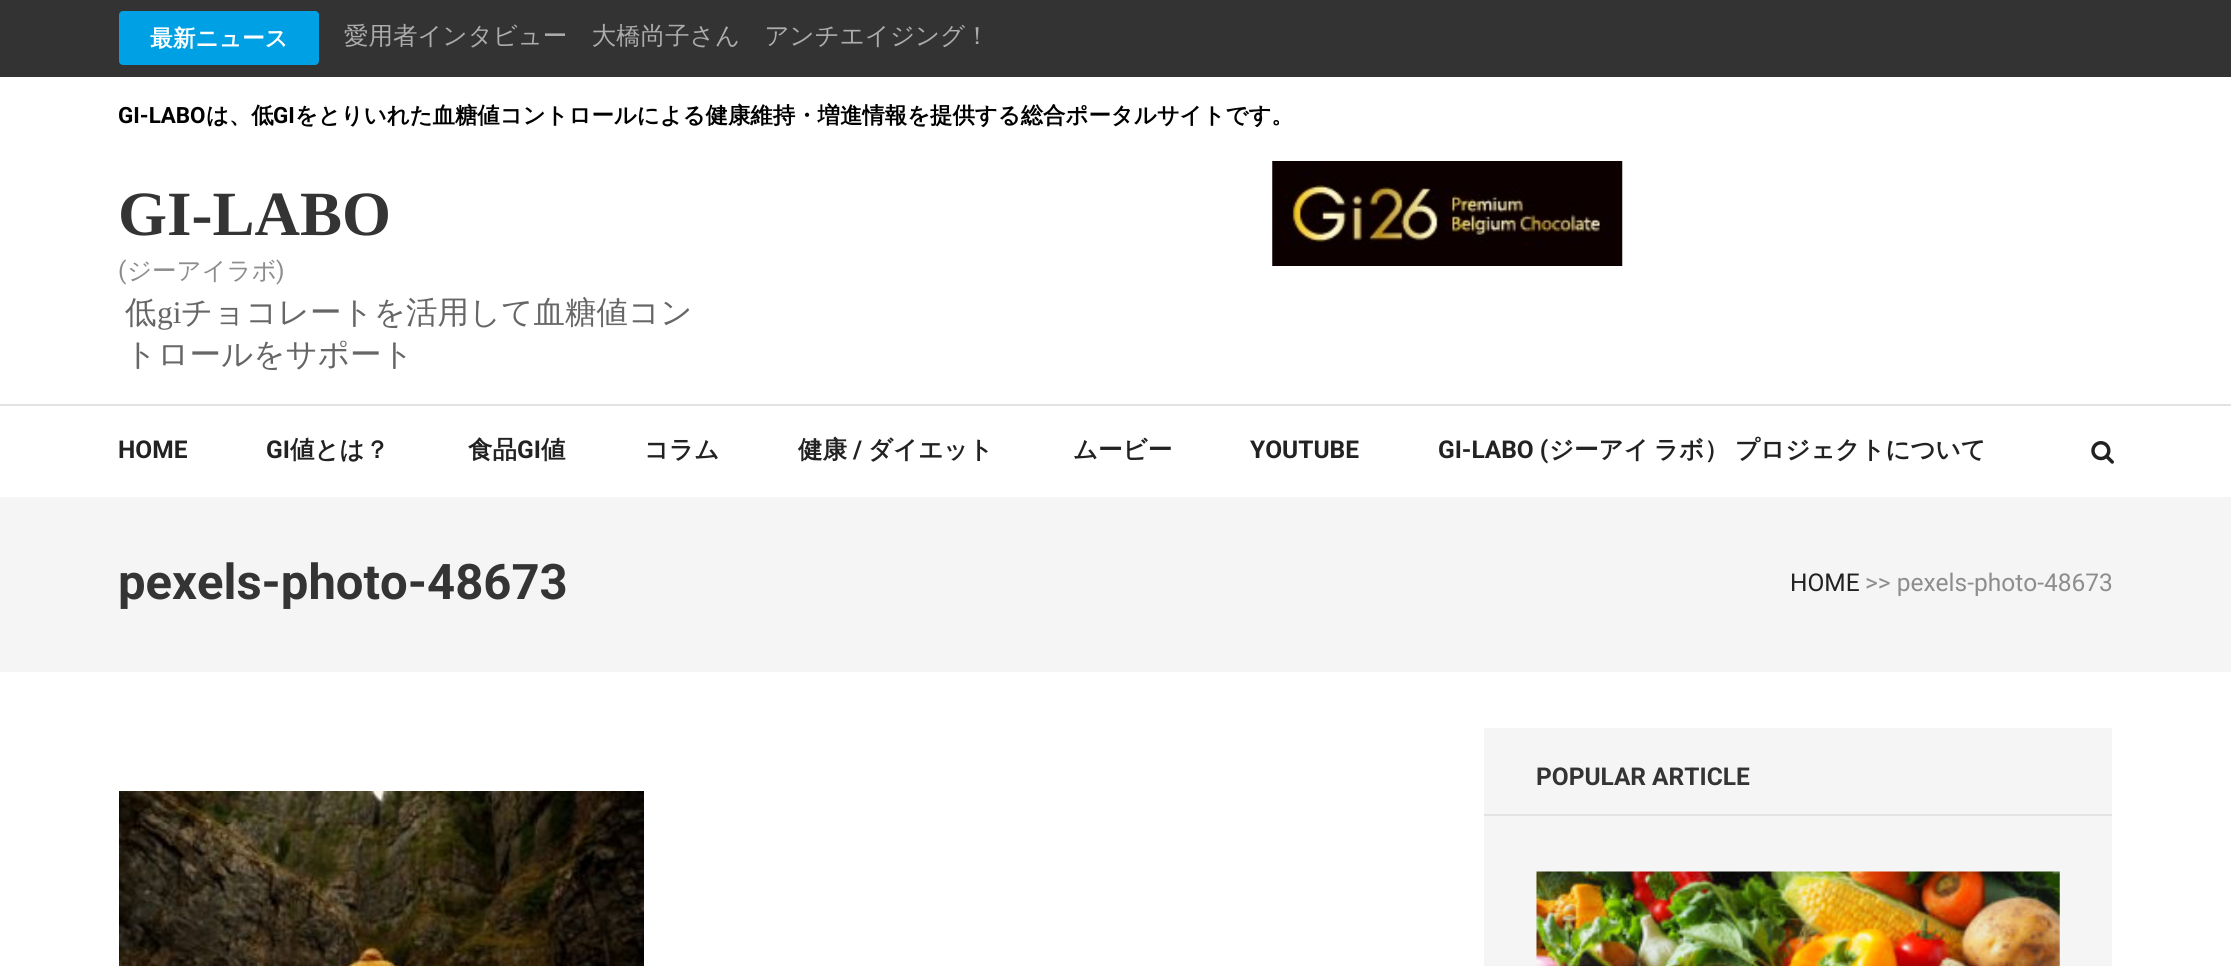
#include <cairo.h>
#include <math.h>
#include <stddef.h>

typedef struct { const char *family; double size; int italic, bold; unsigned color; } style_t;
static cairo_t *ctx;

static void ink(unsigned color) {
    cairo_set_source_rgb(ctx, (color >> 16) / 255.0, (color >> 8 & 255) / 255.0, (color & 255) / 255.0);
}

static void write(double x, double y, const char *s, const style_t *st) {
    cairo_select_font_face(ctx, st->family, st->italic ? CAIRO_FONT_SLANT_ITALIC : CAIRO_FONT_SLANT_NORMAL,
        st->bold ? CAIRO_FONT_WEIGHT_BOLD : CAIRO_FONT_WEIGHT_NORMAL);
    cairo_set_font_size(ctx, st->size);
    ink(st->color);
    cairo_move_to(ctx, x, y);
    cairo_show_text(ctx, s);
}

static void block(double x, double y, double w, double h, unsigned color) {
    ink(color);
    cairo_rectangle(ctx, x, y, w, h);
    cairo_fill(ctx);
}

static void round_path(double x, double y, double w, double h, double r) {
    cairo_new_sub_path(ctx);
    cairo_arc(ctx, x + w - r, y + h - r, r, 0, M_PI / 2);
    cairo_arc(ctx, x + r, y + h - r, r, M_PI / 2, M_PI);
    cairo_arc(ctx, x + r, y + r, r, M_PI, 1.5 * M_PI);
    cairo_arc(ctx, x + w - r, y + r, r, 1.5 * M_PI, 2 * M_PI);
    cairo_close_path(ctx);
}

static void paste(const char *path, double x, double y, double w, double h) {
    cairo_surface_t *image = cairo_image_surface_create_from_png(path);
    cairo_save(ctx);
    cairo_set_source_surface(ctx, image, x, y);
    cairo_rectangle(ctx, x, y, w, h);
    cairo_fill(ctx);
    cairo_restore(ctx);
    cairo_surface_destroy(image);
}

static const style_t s1 = {"WenQuanYi Zen Hei", 22.75, 0, 1, 0xffffff};
static const style_t s2 = {"WenQuanYi Zen Hei Medium", 24.5, 0, 0, 0xacacac};
static const style_t s3 = {"Roboto", 22.4, 0, 1, 0x000000};
static const style_t s4 = {"WenQuanYi Zen Hei", 22.4, 0, 1, 0x000000};
static const style_t s5 = {"Liberation Serif", 63, 0, 1, 0x343434};
static const style_t s6 = {"Roboto", 24.5, 0, 0, 0x8d8d8d};
static const style_t s7 = {"WenQuanYi Zen Hei Medium", 24.5, 0, 0, 0x8d8d8d};
static const style_t s8 = {"WenQuanYi Zen Hei Medium", 31.5, 0, 0, 0x666666};
static const style_t s9 = {"Liberation Serif", 31.5, 0, 0, 0x666666};
static const style_t s10 = {"Roboto", 24.5, 0, 1, 0x222222};
static const style_t s11 = {"WenQuanYi Zen Hei", 24.5, 0, 1, 0x222222};
static const style_t s12 = {"Roboto", 49, 0, 1, 0x343434};
static const style_t s13 = {"Roboto", 24.5, 0, 0, 0x222222};
static const style_t s14 = {"Roboto", 24.5, 0, 1, 0x343434};

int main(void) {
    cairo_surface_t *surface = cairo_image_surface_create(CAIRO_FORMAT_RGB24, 2231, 966);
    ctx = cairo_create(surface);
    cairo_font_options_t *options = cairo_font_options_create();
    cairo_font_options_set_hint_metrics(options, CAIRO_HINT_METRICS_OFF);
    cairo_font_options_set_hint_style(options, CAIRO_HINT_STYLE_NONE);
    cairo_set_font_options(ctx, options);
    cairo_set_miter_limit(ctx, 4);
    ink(0xffffff);
    cairo_paint(ctx);
    block(0, 0, 2231, 77, 0x333333);
    ink(0x00a1e4);
    round_path(119, 11, 200, 54, 4);
    cairo_fill(ctx);
    write(150, 46, "最新ニュース", &s1);
    write(344, 44, "愛用者インタビュー　大橋尚子さん　アンチエイジング！", &s2);
    block(0, 404, 2231, 2, 0xe3e3e3);
    write(118, 123, "GI-LABO", &s3);
    write(206, 123, "は、低", &s4);
    write(273, 123, "GI", &s3);
    write(295, 123, "をとりいれた血糖値コントロールによる健康維持・増進情報を提供する総合ポータルサイトです。", &s4);
    write(118, 235, "GI-LABO", &s5);
    write(118, 279, "(", &s6);
    write(127, 279, "ジーアイラボ", &s7);
    write(276, 279, ")", &s6);
    write(125, 323, "低", &s8);
    write(157, 323, "gi", &s9);
    write(181, 323, "チョコレートを活用して血糖値コン", &s8);
    write(125, 365, "トロールをサポート", &s8);
    paste("pic1.png", 1272, 161, 351, 105);
    write(118, 458, "HOME", &s10);
    write(266, 458, "GI", &s10);
    write(290, 458, "値とは？", &s11);
    write(468, 458, "食品", &s11);
    write(517, 458, "GI", &s10);
    write(541, 458, "値", &s11);
    write(644, 458, "コラム", &s11);
    write(798, 458, "健康", &s11);
    write(853, 458, "/", &s10);
    write(868, 458, "ダイエット", &s11);
    write(1073, 458, "ムービー", &s11);
    write(1250, 458, "YOUTUBE", &s10);
    write(1438, 458, "GI-LABO (", &s10);
    write(1549, 458, "ジーアイ", &s11);
    write(1654, 458, "ラボ）", &s11);
    write(1735, 458, "プロジェクトについて", &s11);
    paste("pic2.png", 2091, 441, 23, 23);
    block(0, 497, 2231, 175, 0xf5f5f5);
    write(118, 599, "pexels-photo-48673", &s12);
    write(1790, 591, "HOME", &s13);
    write(1865, 591, ">> pexels-photo-48673", &s6);
    block(1484, 728, 628, 238, 0xf5f5f5);
    block(1484, 814, 628, 2, 0xe3e3e3);
    write(1536, 785, "POPULAR ARTICLE", &s14);
    paste("pic3.png", 1536, 871, 524, 95);
    paste("pic4.png", 119, 791, 525, 175);
    cairo_surface_write_to_png(surface, "screenshot.png");
    cairo_font_options_destroy(options);
    cairo_destroy(ctx);
    cairo_surface_destroy(surface);
    return 0;
}
